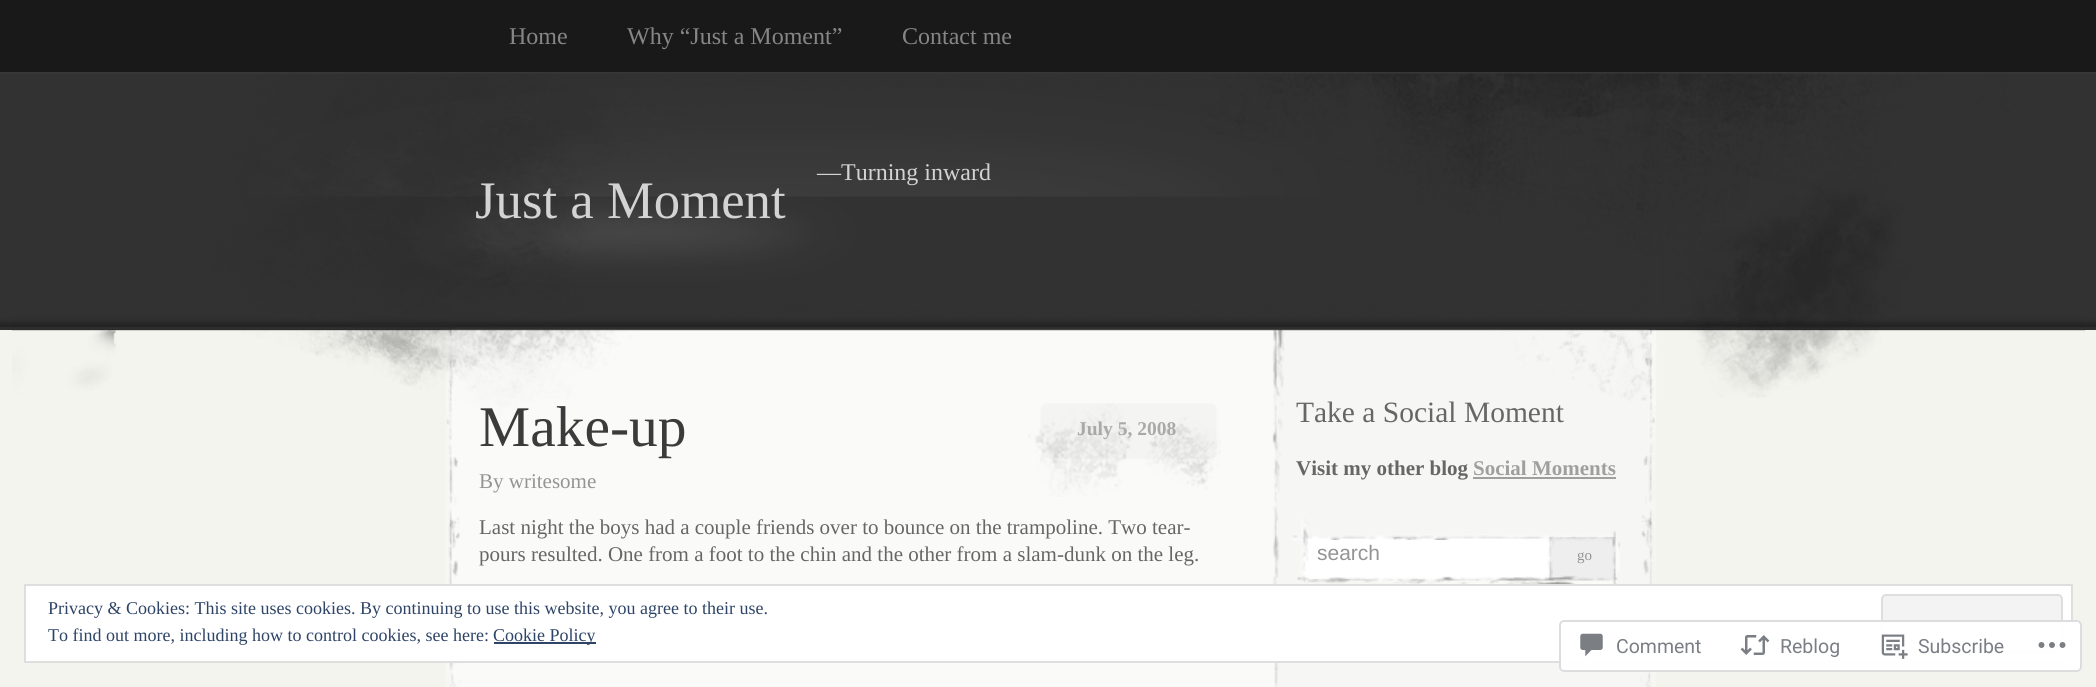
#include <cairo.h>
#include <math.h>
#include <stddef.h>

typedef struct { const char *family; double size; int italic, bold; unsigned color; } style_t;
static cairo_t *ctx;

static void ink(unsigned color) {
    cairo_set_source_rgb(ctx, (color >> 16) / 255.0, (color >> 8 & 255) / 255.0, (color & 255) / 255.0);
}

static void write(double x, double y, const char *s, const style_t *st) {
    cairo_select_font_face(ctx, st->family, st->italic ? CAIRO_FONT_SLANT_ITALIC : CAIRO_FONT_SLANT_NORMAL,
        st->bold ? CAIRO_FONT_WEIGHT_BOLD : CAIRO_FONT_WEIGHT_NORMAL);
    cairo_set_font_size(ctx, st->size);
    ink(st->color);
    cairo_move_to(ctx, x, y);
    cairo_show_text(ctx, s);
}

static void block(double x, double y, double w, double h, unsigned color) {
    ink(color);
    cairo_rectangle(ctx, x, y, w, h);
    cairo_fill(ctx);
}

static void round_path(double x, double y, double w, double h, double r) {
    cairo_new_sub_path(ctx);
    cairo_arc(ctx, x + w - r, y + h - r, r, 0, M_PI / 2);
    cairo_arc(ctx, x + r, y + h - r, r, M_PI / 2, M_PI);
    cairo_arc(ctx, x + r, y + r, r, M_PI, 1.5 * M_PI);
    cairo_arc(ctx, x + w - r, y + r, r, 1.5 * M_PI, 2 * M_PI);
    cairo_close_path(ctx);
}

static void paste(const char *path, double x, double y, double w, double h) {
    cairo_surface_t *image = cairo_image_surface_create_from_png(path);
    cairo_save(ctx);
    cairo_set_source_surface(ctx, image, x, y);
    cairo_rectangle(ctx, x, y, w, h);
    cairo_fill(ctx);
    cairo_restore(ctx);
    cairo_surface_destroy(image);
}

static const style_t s1 = {"Liberation Serif", 24, 0, 0, 0x868686};
static const style_t s2 = {"Liberation Serif", 24, 0, 0, 0xd3d3d3};
static const style_t s3 = {"Liberation Serif", 52.75, 0, 0, 0xd3d3d3};
static const style_t s4 = {"Liberation Serif", 57.5, 0, 0, 0x3b3b3b};
static const style_t s5 = {"Liberation Serif", 19.5, 0, 1, 0xa9a9a9};
static const style_t s6 = {"Liberation Serif", 21, 0, 0, 0x949494};
static const style_t s7 = {"Liberation Serif", 21, 0, 0, 0x666666};
static const style_t s8 = {"Liberation Serif", 29.5, 0, 0, 0x666666};
static const style_t s9 = {"Liberation Serif", 21, 0, 1, 0x666666};
static const style_t s10 = {"Liberation Serif", 21, 0, 1, 0x9f9f9f};
static const style_t s11 = {"Liberation Sans", 21, 0, 0, 0x949494};
static const style_t s12 = {"Liberation Serif", 15, 0, 0, 0x949494};
static const style_t s13 = {"Liberation Serif", 18, 0, 0, 0x2e4467};
static const style_t s14 = {"Roboto", 19.5, 0, 0, 0x7b7f85};

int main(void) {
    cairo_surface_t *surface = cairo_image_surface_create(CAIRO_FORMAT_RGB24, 2096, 687);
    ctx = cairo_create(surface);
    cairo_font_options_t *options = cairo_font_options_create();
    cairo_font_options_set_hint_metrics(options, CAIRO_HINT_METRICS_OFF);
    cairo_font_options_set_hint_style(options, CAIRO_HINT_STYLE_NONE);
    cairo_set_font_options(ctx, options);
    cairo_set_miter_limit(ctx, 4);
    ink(0xf3f4ee);
    cairo_paint(ctx);
    block(0, 0, 2096, 72, 0x191919);
    block(0, 72, 2096, 2, 0x373737);
    write(509, 44, "Home", &s1);
    write(627, 44, "Why “Just a Moment”", &s1);
    write(902, 44, "Contact me", &s1);
    paste("pic1.png", 0, 74, 2096, 256);
    paste("pic3.png", 445, 397, 1211, 290);
    paste("pic2.png", 12, 73, 2073, 325);
    write(817, 180, "—Turning inward", &s2);
    write(475, 218, "Just a Moment", &s3);
    write(479, 446, "Make-up", &s4);
    paste("pic4.png", 1028, 403, 193, 94);
    write(1077, 435, "July 5, 2008", &s5);
    write(479, 488, "By writesome", &s6);
    write(479, 534, "Last night the boys had a couple friends over to bounce on the trampoline. Two tear-", &s7);
    write(479, 561, "pours resulted. One from a foot to the chin and the other from a slam-dunk on the leg.", &s7);
    write(1296, 422, "Take a Social Moment", &s8);
    write(1296, 475, "Visit my other blog", &s9);
    write(1473, 475, "Social Moments", &s10);
    block(1473, 477, 143, 2, 0x9f9f9f);
    paste("pic5.png", 1292, 519, 328, 65);
    block(1330, 540, 193, 2, 0xffffff);
    write(1317, 560, "search", &s11);
    write(1577, 560, "go", &s12);
    ink(0xffffff);
    cairo_rectangle(ctx, 25, 585, 2047, 77);
    cairo_fill_preserve(ctx);
    ink(0xdedede);
    cairo_stroke(ctx);
    write(48, 614, "Privacy & Cookies: This site uses cookies. By continuing to use this website, you agree to their use.", &s13);
    ink(0xf3f3f3);
    round_path(1882, 595, 180, 57, 4);
    cairo_fill_preserve(ctx);
    ink(0xdedede);
    cairo_stroke(ctx);
    write(48, 641, "To find out more, including how to control cookies, see here:", &s13);
    block(494, 642, 102, 2, 0x2e4467);
    write(493, 641, "Cookie Policy", &s13);
    cairo_set_source_rgba(ctx, 1, 1, 1, 0.98);
    round_path(1559, 620, 523, 52, 5);
    cairo_fill(ctx);
    round_path(1560, 621, 521, 50, 4);
    cairo_set_source_rgba(ctx, 0.863, 0.863, 0.871, 0.98);
    cairo_stroke(ctx);
    paste("pic6.png", 1580, 633, 23, 24);
    write(1616, 653, "Comment", &s14);
    paste("pic7.png", 1740, 635, 30, 20);
    write(1780, 653, "Reblog", &s14);
    paste("pic8.png", 1881, 634, 27, 25);
    write(1918, 653, "Subscribe", &s14);
    paste("pic9.png", 2038, 642, 28, 6);
    cairo_surface_write_to_png(surface, "screenshot.png");
    cairo_font_options_destroy(options);
    cairo_destroy(ctx);
    cairo_surface_destroy(surface);
    return 0;
}
